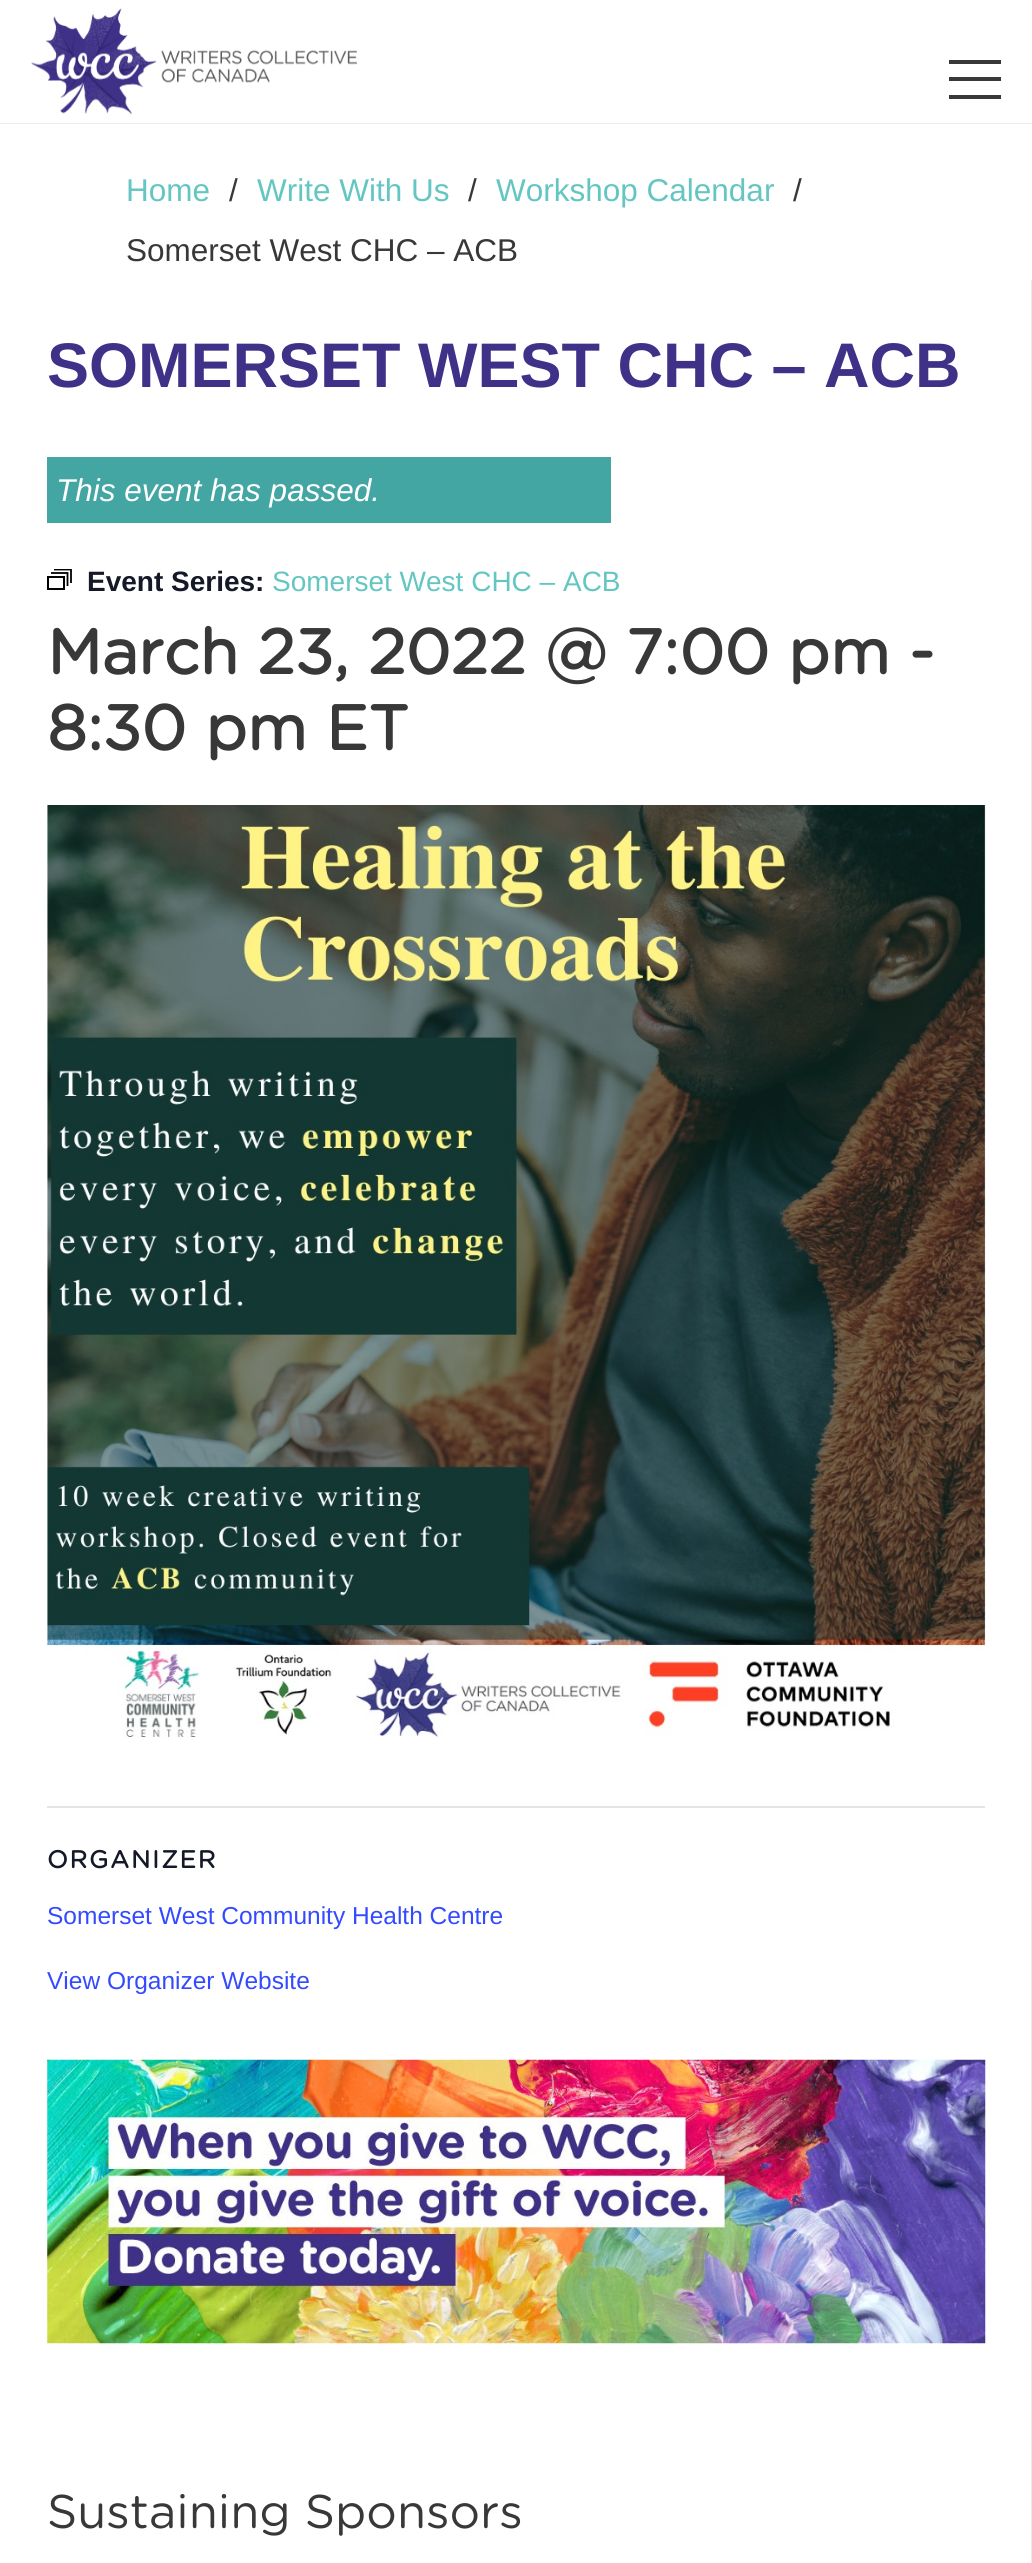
#include <cairo.h>
#include <math.h>
#include <stddef.h>

typedef struct { const char *family; double size; int italic, bold; unsigned color; } style_t;
static cairo_t *ctx;

static void ink(unsigned color) {
    cairo_set_source_rgb(ctx, (color >> 16) / 255.0, (color >> 8 & 255) / 255.0, (color & 255) / 255.0);
}

static void write(double x, double y, const char *s, const style_t *st) {
    cairo_select_font_face(ctx, st->family, st->italic ? CAIRO_FONT_SLANT_ITALIC : CAIRO_FONT_SLANT_NORMAL,
        st->bold ? CAIRO_FONT_WEIGHT_BOLD : CAIRO_FONT_WEIGHT_NORMAL);
    cairo_set_font_size(ctx, st->size);
    ink(st->color);
    cairo_move_to(ctx, x, y);
    cairo_show_text(ctx, s);
}

static void write_spaced(double x, double y, const char *s, double letter, double word) {
    cairo_move_to(ctx, x, y);
    while (*s) {
        char ch[5] = {0};
        int n = 0;
        do ch[n++] = *s++; while ((*s & 0xC0) == 0x80);
        cairo_show_text(ctx, ch);
        cairo_rel_move_to(ctx, letter + word * (*ch == ' '), 0);
    }
}

static void block(double x, double y, double w, double h, unsigned color) {
    ink(color);
    cairo_rectangle(ctx, x, y, w, h);
    cairo_fill(ctx);
}

static void paste(const char *path, double x, double y, double w, double h) {
    cairo_surface_t *image = cairo_image_surface_create_from_png(path);
    cairo_save(ctx);
    cairo_set_source_surface(ctx, image, x, y);
    cairo_rectangle(ctx, x, y, w, h);
    cairo_fill(ctx);
    cairo_restore(ctx);
    cairo_surface_destroy(image);
}

static const style_t s1 = {"Liberation Sans", 31.5, 0, 0, 0x64c6c2};
static const style_t s2 = {"Liberation Sans", 31.5, 0, 0, 0x383838};
static const style_t s3 = {"Liberation Sans", 63, 0, 1, 0x3f3187};
static const style_t s4 = {"Liberation Sans", 31.5, 1, 0, 0xffffff};
static const style_t s5 = {"Liberation Sans", 28, 0, 1, 0x141827};
static const style_t s6 = {"Liberation Sans", 28, 0, 0, 0x64c6c2};
static const style_t s7 = {"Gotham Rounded", 63, 0, 1, 0x383838};
static const style_t s8 = {"Liberation Sans", 24.5, 0, 0, 0x334aff};
static const style_t s9 = {"Gotham Rounded", 47.25, 0, 0, 0x383838};

int main(void) {
    cairo_surface_t *surface = cairo_image_surface_create(CAIRO_FORMAT_RGB24, 1032, 2563);
    ctx = cairo_create(surface);
    cairo_font_options_t *options = cairo_font_options_create();
    cairo_font_options_set_hint_metrics(options, CAIRO_HINT_METRICS_OFF);
    cairo_font_options_set_hint_style(options, CAIRO_HINT_STYLE_NONE);
    cairo_set_font_options(ctx, options);
    cairo_set_miter_limit(ctx, 4);
    ink(0xffffff);
    cairo_paint(ctx);
    ink(0xebebeb);
    cairo_new_path(ctx);
    cairo_move_to(ctx, 0, 122);
    cairo_line_to(ctx, 0, 124);
    cairo_line_to(ctx, 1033, 124);
    cairo_line_to(ctx, 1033, 2);
    cairo_line_to(ctx, 1032, 2);
    cairo_line_to(ctx, 1032, 122);
    cairo_close_path(ctx);
    cairo_fill(ctx);
    block(0, 122, 1032, 1, 0xffffff);
    paste("pic1.png", 31, 8, 326, 106);
    block(949, 77, 52, 4, 0x383838);
    block(949, 60, 52, 4, 0x383838);
    block(949, 95, 52, 4, 0x383838);
    ink(0xebebeb);
    cairo_new_path(ctx);
    cairo_move_to(ctx, 1031, 280);
    cairo_line_to(ctx, 1031, 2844);
    cairo_line_to(ctx, 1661, 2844);
    cairo_line_to(ctx, 1032, 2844);
    cairo_line_to(ctx, 1032, 280);
    cairo_close_path(ctx);
    cairo_fill(ctx);
    write(126, 201, "Home", &s1);
    write(229, 201, "/", &s2);
    write(257, 201, "Write With Us", &s1);
    write(468, 201, "/", &s2);
    write(496, 201, "Workshop Calendar", &s1);
    write(793, 201, "/", &s2);
    write(126, 261, "Somerset West CHC – ACB", &s2);
    write(47, 387, "SOMERSET WEST CHC – ACB", &s3);
    block(47, 457, 564, 66, 0x44a6a2);
    write(56, 501, "This event has passed.", &s4);
    cairo_rectangle(ctx, 48, 577, 16, 12);
    ink(0x000000);
    cairo_stroke(ctx);
    cairo_new_path(ctx);
    cairo_move_to(ctx, 51, 573);
    cairo_line_to(ctx, 67.5, 573);
    cairo_line_to(ctx, 67.5, 586);
    cairo_set_line_width(ctx, 1.8);
    cairo_stroke(ctx);
    cairo_save(ctx);
    cairo_rectangle(ctx, 47, 569, 25, 21);
    cairo_clip(ctx);
    cairo_new_path(ctx);
    cairo_move_to(ctx, 54, 569.5);
    cairo_line_to(ctx, 71, 569.5);
    cairo_line_to(ctx, 71, 583);
    cairo_stroke(ctx);
    cairo_restore(ctx);
    write(87, 591, "Event Series:", &s5);
    write(272, 591, "Somerset West CHC – ACB", &s6);
    write(47, 674, "March 23, 2022 @ 7:00 pm -", &s7);
    write(47, 750, "8:30 pm ET", &s7);
    paste("pic2.png", 47, 805, 939, 933);
    block(47, 1806, 938, 2, 0xe4e4e4);
    cairo_set_font_size(ctx, 24.5);
    ink(0x141827);
    write_spaced(47, 1868, "ORGANIZER", 1.75, 0);
    write(47, 1924, "Somerset West Community Health Centre", &s8);
    write(47, 1989, "View Organizer Website", &s8);
    paste("pic3.png", 47, 2059, 939, 285);
    write(47, 2528, "Sustaining Sponsors", &s9);
    cairo_surface_write_to_png(surface, "screenshot.png");
    cairo_font_options_destroy(options);
    cairo_destroy(ctx);
    cairo_surface_destroy(surface);
    return 0;
}
